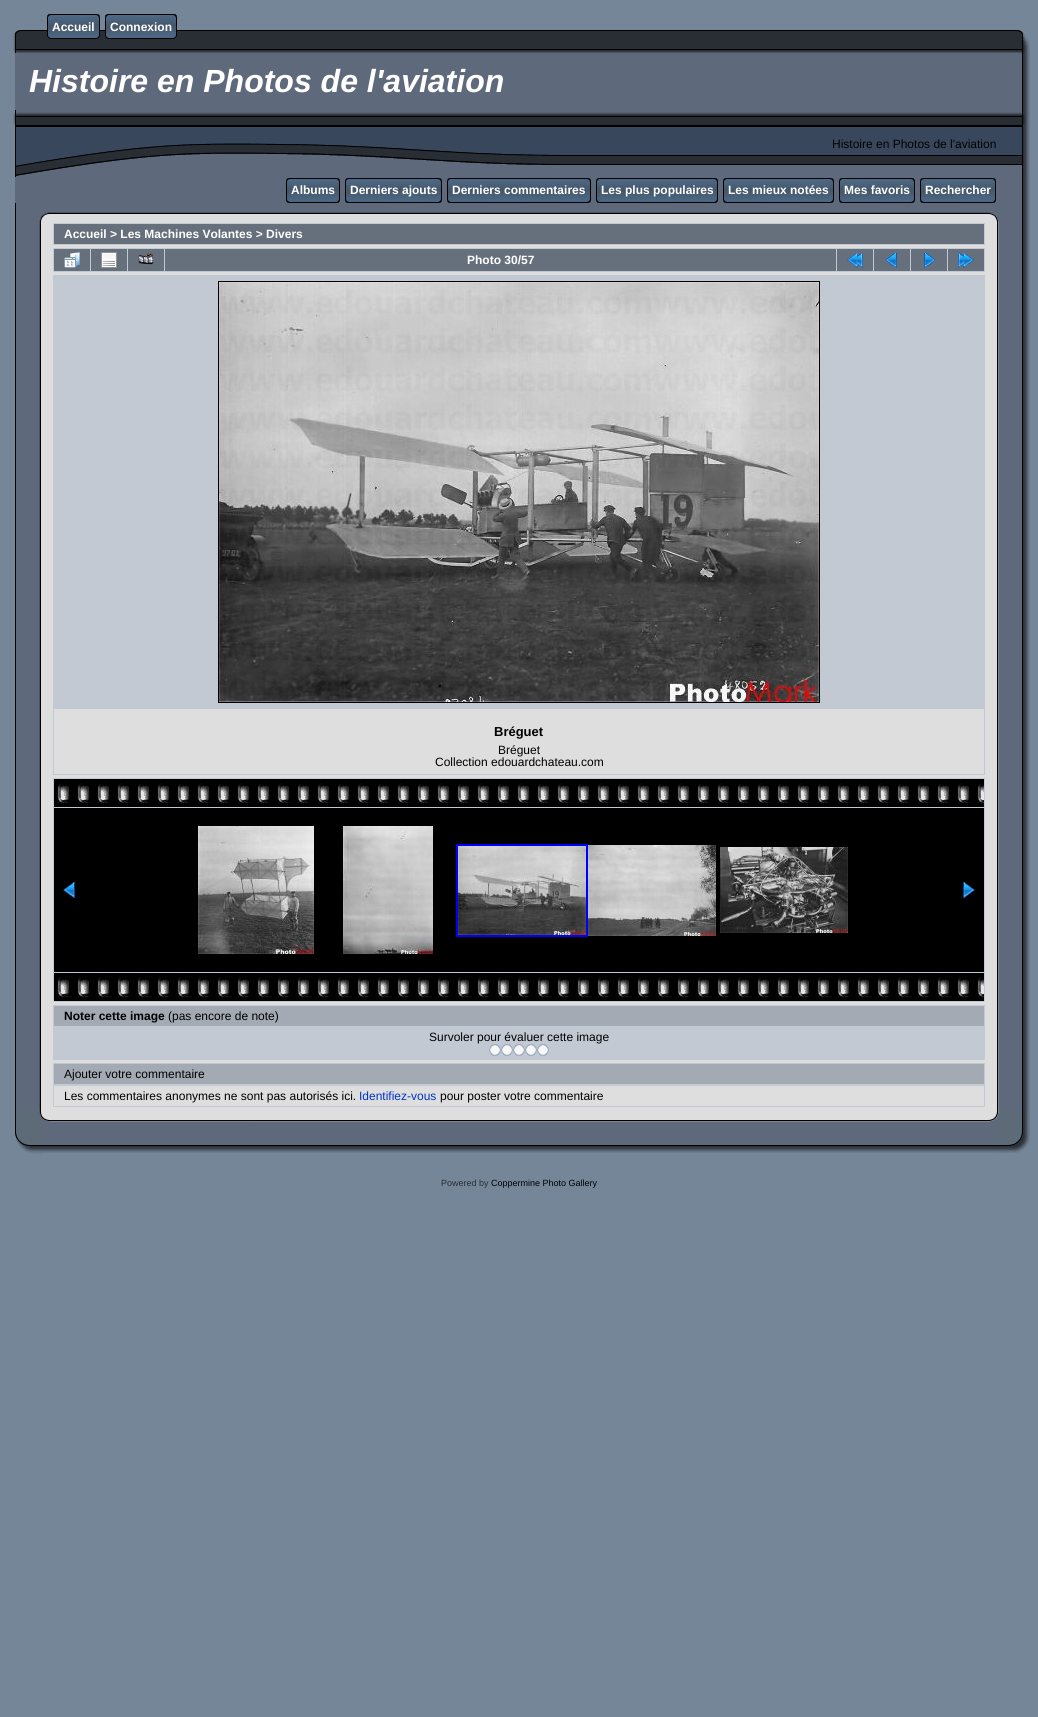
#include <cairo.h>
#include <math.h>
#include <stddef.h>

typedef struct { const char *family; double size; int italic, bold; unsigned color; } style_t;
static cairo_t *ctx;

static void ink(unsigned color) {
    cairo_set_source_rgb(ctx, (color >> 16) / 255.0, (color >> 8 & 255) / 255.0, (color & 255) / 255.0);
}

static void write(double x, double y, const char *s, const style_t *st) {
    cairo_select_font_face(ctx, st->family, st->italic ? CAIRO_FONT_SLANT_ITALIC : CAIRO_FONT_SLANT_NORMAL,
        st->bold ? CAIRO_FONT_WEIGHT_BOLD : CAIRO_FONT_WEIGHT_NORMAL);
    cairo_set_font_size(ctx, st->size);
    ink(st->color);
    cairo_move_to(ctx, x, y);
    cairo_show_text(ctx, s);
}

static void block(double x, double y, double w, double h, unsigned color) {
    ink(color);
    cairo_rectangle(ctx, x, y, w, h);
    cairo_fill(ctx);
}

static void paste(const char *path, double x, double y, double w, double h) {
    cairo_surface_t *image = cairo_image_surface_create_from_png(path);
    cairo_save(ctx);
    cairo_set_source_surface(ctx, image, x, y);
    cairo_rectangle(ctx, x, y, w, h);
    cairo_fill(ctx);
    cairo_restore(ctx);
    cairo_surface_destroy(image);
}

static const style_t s1 = {"Liberation Sans", 12, 0, 1, 0xffffff};
static const style_t s2 = {"Liberation Sans", 32, 1, 1, 0xffffff};
static const style_t s3 = {"Liberation Sans", 12, 0, 0, 0x000000};
static const style_t s4 = {"Liberation Sans", 13, 0, 1, 0x000000};
static const style_t s5 = {"Liberation Sans", 12, 0, 1, 0x000000};
static const style_t s6 = {"Liberation Sans", 12, 0, 0, 0x0033cc};
static const style_t s7 = {"Liberation Sans", 9, 0, 0, 0x292e34};
static const style_t s8 = {"Liberation Sans", 9, 0, 0, 0x000000};

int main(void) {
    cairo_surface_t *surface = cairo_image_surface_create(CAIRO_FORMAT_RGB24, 1038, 1717);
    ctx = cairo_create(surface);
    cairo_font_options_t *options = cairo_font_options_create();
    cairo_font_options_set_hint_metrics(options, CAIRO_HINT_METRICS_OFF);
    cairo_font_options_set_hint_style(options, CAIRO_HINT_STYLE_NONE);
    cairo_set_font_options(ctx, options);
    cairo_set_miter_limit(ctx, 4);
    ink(0x758698);
    cairo_paint(ctx);
    paste("pic1.png", 42, 30, 954, 23);
    paste("pic2.png", 47, 14, 5, 25);
    paste("pic3.png", 52, 14, 43, 25);
    write(52, 31, "Accueil", &s1);
    paste("pic4.png", 95, 14, 5, 25);
    paste("pic2.png", 105, 14, 5, 25);
    paste("pic5.png", 110, 14, 62, 25);
    write(110, 31, "Connexion", &s1);
    paste("pic4.png", 172, 14, 5, 25);
    paste("pic6.png", 13, 30, 29, 23);
    paste("pic7.png", 996, 30, 34, 23);
    block(15, 53, 1007, 57, 0x5e697b);
    paste("pic8.png", 1022, 53, 8, 57);
    write(29, 92, "Histoire en Photos de l'aviation", &s2);
    paste("pic9.png", 13, 110, 547, 67);
    paste("pic10.png", 560, 110, 436, 67);
    write(832, 148, "Histoire en Photos de l'aviation", &s3);
    paste("pic11.png", 996, 110, 34, 67);
    block(15, 177, 981, 26, 0x5e697b);
    paste("pic12.png", 996, 177, 34, 26);
    paste("pic13.png", 286, 178, 5, 25);
    paste("pic14.png", 291, 178, 44, 25);
    write(291, 194, "Albums", &s1);
    paste("pic15.png", 335, 178, 5, 25);
    paste("pic13.png", 345, 178, 5, 25);
    paste("pic16.png", 350, 178, 87, 25);
    write(350, 194, "Derniers ajouts", &s1);
    paste("pic15.png", 437, 178, 5, 25);
    paste("pic13.png", 447, 178, 5, 25);
    paste("pic17.png", 452, 178, 134, 25);
    write(452, 194, "Derniers commentaires", &s1);
    paste("pic15.png", 586, 178, 5, 25);
    paste("pic13.png", 596, 178, 5, 25);
    paste("pic18.png", 601, 178, 112, 25);
    write(601, 194, "Les plus populaires", &s1);
    paste("pic15.png", 713, 178, 5, 25);
    paste("pic13.png", 723, 178, 5, 25);
    paste("pic19.png", 728, 178, 101, 25);
    write(728, 194, "Les mieux notées", &s1);
    paste("pic15.png", 829, 178, 5, 25);
    paste("pic13.png", 839, 178, 5, 25);
    paste("pic20.png", 844, 178, 66, 25);
    write(844, 194, "Mes favoris", &s1);
    paste("pic15.png", 910, 178, 5, 25);
    paste("pic13.png", 920, 178, 5, 25);
    paste("pic20.png", 925, 178, 66, 25);
    write(925, 194, "Rechercher", &s1);
    paste("pic15.png", 991, 178, 5, 25);
    paste("pic21.png", 15, 203, 27, 18);
    paste("pic22.png", 42, 203, 14, 18);
    paste("pic23.png", 56, 203, 926, 18);
    paste("pic24.png", 982, 203, 14, 18);
    paste("pic25.png", 996, 203, 34, 18);
    paste("pic26.png", 15, 221, 27, 888);
    block(42, 221, 954, 888, 0xdedede);
    block(53, 223, 932, 22, 0xc2c9d3);
    block(54, 224, 930, 20, 0x66707c);
    write(64, 238, "Accueil > Les Machines Volantes > Divers", &s1);
    block(53, 248, 932, 24, 0xc2c9d3);
    block(54, 249, 36, 22, 0x66707c);
    paste("pic27.png", 64, 252, 16, 16);
    block(91, 249, 36, 22, 0x66707c);
    paste("pic28.png", 101, 252, 16, 16);
    block(128, 249, 36, 22, 0x66707c);
    paste("pic29.png", 138, 253, 16, 12);
    block(165, 249, 671, 22, 0x66707c);
    write(467, 264, "Photo 30/57", &s1);
    block(837, 249, 36, 22, 0x66707c);
    paste("pic30.png", 847, 252, 16, 16);
    block(874, 249, 36, 22, 0x66707c);
    paste("pic31.png", 885, 252, 12, 16);
    block(911, 249, 36, 22, 0x66707c);
    paste("pic32.png", 924, 252, 12, 16);
    block(948, 249, 36, 22, 0x66707c);
    paste("pic33.png", 958, 252, 16, 16);
    block(53, 275, 932, 500, 0xc2c9d3);
    paste("pic34.png", 219, 282, 600, 420);
    cairo_rectangle(ctx, 218.5, 281.5, 601, 421);
    ink(0x000000);
    cairo_set_line_width(ctx, 1);
    cairo_stroke(ctx);
    block(54, 709, 930, 65, 0xdedede);
    write(494, 736, "Bréguet", &s4);
    write(498, 754, "Bréguet", &s3);
    write(435, 766, "Collection edouardchateau.com", &s3);
    block(53, 778, 932, 224, 0xc2c9d3);
    block(54, 779, 930, 28, 0x000000);
    paste("pic35.png", 57, 779, 927, 24);
    block(54, 808, 930, 164, 0x000000);
    paste("pic36.png", 63, 882, 12, 16);
    paste("pic37.png", 198, 826, 116, 128);
    paste("pic38.png", 343, 826, 90, 128);
    cairo_rectangle(ctx, 457, 845, 130, 91);
    ink(0x0000ff);
    cairo_set_line_width(ctx, 2);
    cairo_stroke(ctx);
    paste("pic39.png", 458, 846, 128, 89);
    paste("pic40.png", 588, 845, 128, 91);
    paste("pic41.png", 720, 847, 128, 86);
    paste("pic42.png", 963, 882, 12, 16);
    block(54, 973, 930, 28, 0x000000);
    paste("pic35.png", 57, 973, 927, 24);
    block(53, 1005, 932, 55, 0xc2c9d3);
    block(54, 1006, 930, 20, 0xa3aab4);
    write(64, 1020, "Noter cette image", &s5);
    write(168, 1020, "(pas encore de note)", &s3);
    write(429, 1041, "Survoler pour évaluer cette image", &s3);
    paste("pic43.png", 489, 1044, 12, 12);
    paste("pic43.png", 501, 1044, 12, 12);
    paste("pic43.png", 513, 1044, 12, 12);
    paste("pic43.png", 525, 1044, 12, 12);
    paste("pic43.png", 537, 1044, 12, 12);
    block(53, 1063, 932, 44, 0xc2c9d3);
    block(54, 1064, 930, 20, 0xa3aab4);
    write(64, 1078, "Ajouter votre commentaire", &s3);
    block(54, 1086, 930, 20, 0xdedede);
    write(64, 1100, "Les commentaires anonymes ne sont pas autorisés ici.", &s3);
    write(359, 1100, "Identifiez-vous", &s6);
    write(440, 1100, "pour poster votre commentaire", &s3);
    paste("pic44.png", 996, 221, 34, 888);
    paste("pic45.png", 998, 501, 1, 49);
    paste("pic46.png", 15, 1109, 27, 45);
    paste("pic47.png", 42, 1109, 208, 44);
    paste("pic48.png", 250, 1109, 538, 44);
    paste("pic49.png", 788, 1109, 208, 44);
    paste("pic50.png", 996, 1109, 34, 44);
    write(441, 1186, "Powered by", &s7);
    write(491, 1186, "Coppermine Photo Gallery", &s8);
    cairo_surface_write_to_png(surface, "screenshot.png");
    cairo_font_options_destroy(options);
    cairo_destroy(ctx);
    cairo_surface_destroy(surface);
    return 0;
}
